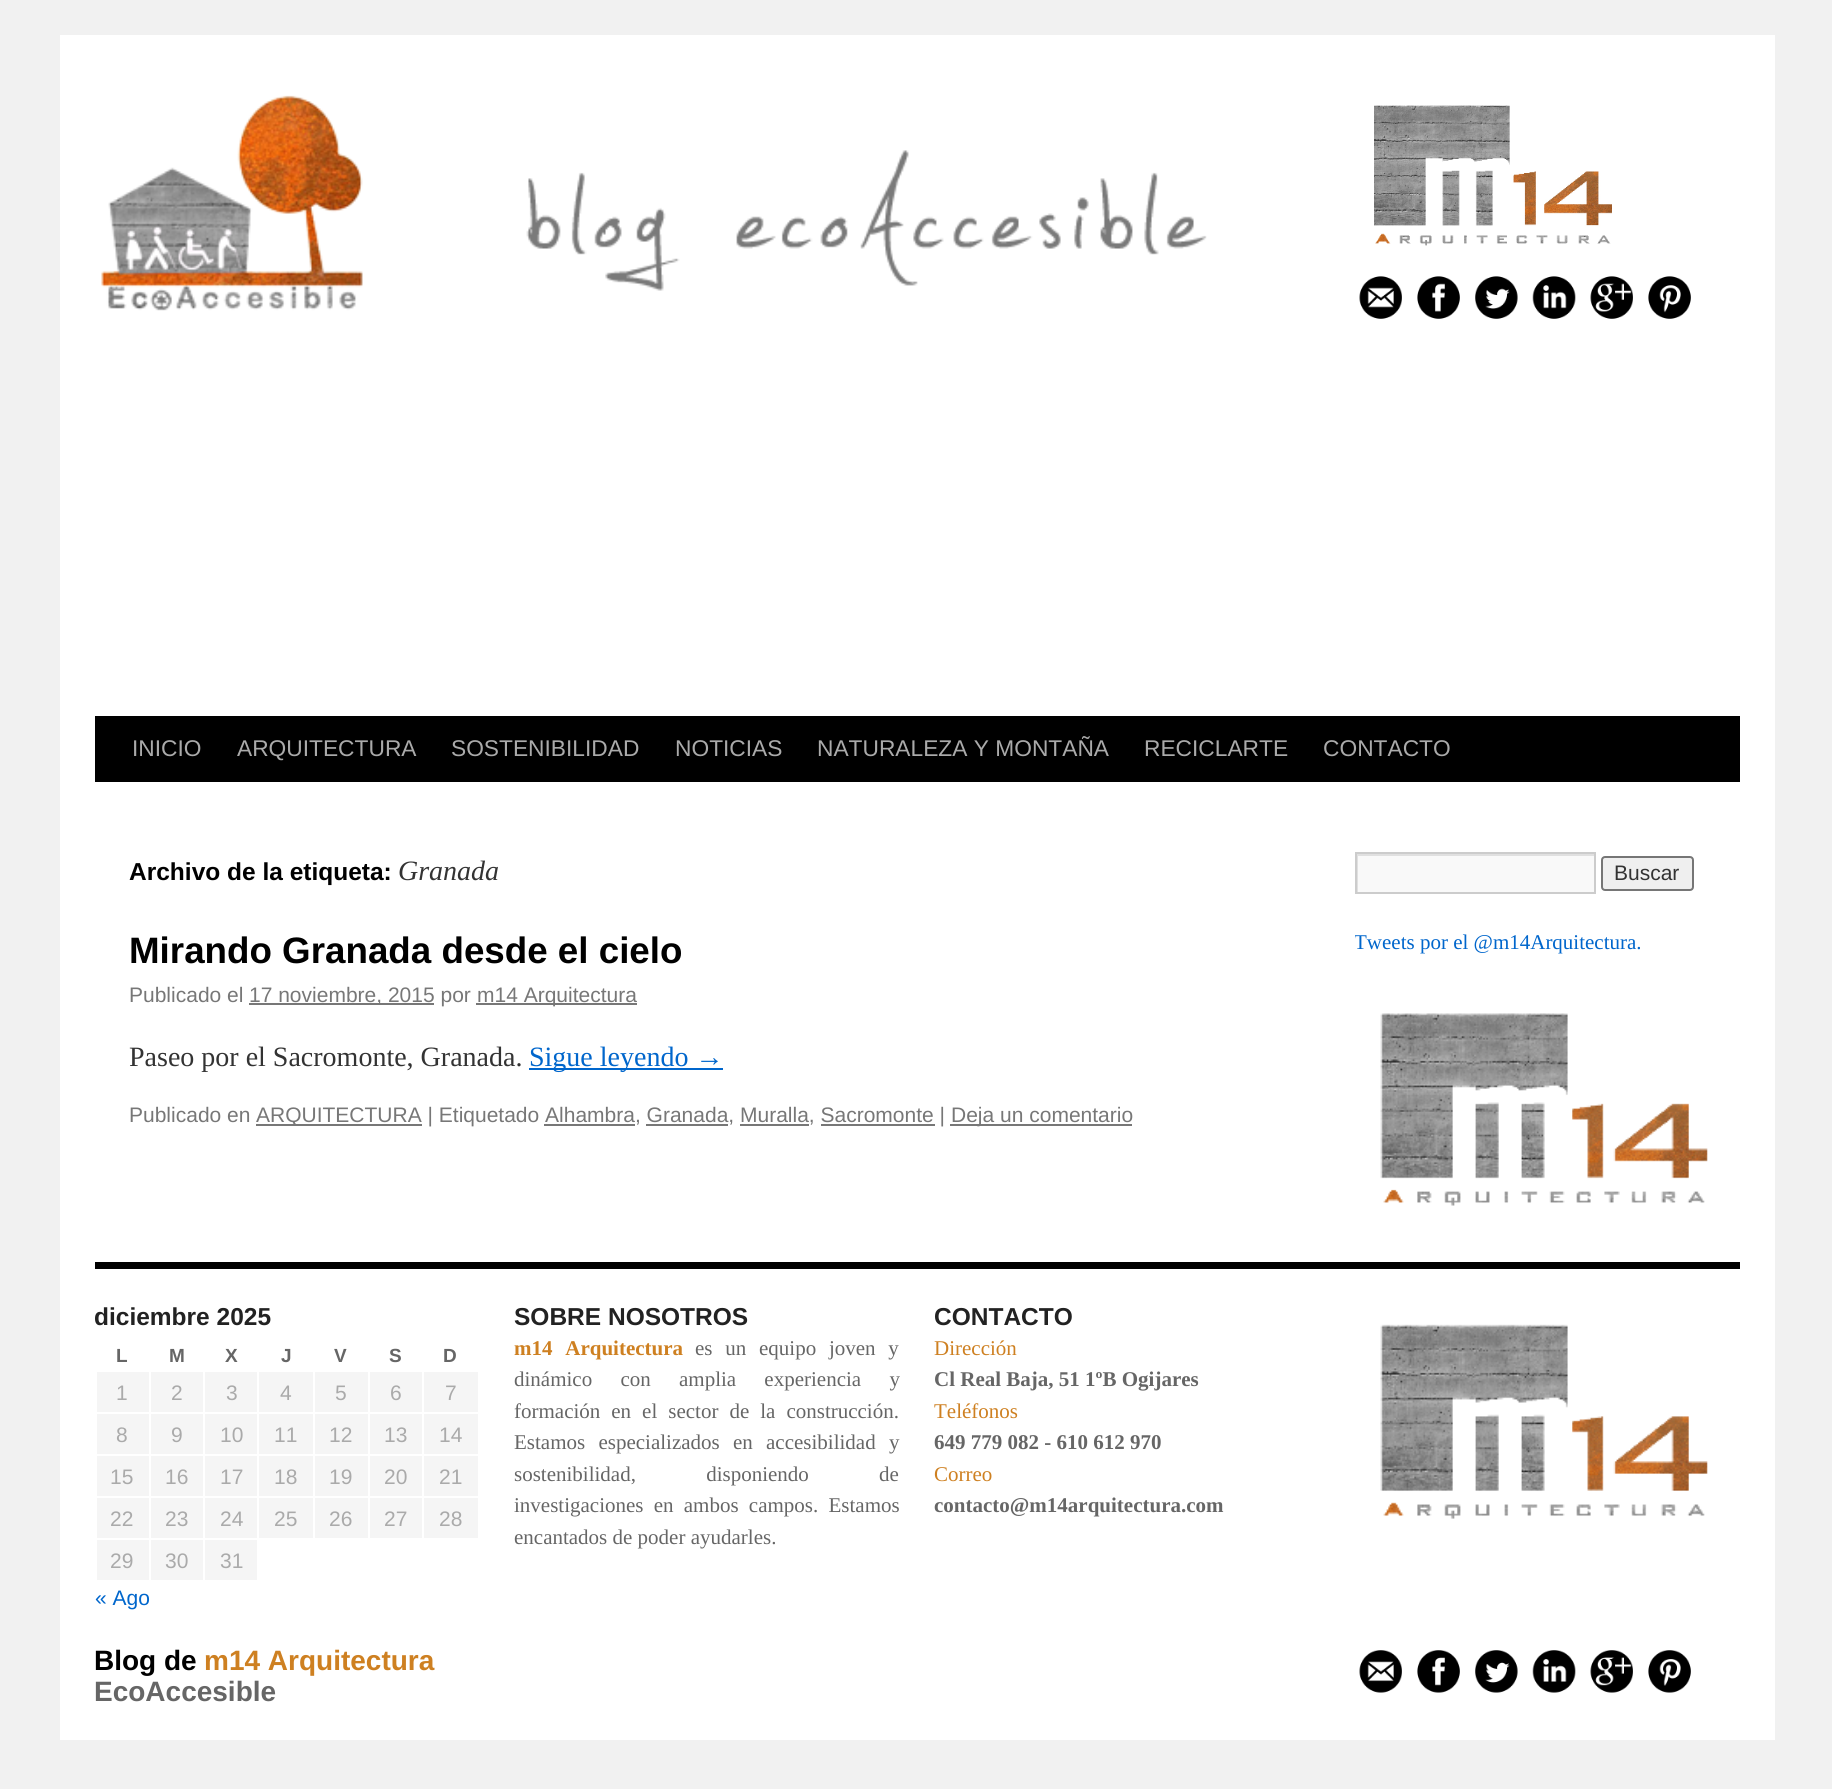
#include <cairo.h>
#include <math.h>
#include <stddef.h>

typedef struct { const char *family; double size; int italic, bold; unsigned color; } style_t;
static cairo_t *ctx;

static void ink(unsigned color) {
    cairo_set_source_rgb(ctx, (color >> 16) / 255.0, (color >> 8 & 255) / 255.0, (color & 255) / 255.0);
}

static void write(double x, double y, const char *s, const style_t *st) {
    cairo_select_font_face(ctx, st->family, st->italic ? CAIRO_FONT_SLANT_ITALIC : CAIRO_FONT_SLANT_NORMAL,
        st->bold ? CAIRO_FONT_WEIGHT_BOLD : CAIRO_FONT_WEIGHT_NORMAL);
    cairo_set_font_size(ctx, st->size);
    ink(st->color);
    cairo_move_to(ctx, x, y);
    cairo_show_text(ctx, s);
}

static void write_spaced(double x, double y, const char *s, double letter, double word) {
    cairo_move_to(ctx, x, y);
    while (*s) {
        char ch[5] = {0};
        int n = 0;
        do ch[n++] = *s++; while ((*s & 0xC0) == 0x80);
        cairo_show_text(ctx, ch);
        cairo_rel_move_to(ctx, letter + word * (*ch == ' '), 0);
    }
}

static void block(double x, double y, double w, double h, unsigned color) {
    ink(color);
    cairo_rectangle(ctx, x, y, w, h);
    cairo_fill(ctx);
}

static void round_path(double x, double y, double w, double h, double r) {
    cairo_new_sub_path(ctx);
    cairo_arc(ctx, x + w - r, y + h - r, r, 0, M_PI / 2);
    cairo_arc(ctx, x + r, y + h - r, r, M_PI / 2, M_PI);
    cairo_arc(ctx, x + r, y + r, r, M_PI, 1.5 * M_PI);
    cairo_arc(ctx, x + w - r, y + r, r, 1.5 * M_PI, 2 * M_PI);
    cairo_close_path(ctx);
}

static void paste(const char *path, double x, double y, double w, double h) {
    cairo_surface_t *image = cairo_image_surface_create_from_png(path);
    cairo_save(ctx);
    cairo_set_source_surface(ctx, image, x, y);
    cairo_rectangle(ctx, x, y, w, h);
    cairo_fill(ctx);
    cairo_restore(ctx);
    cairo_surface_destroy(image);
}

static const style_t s1 = {"Liberation Sans", 22.75, 0, 0, 0xaaaaaa};
static const style_t s2 = {"Liberation Sans", 24.5, 0, 1, 0x000000};
static const style_t s3 = {"Liberation Serif", 28, 1, 0, 0x333333};
static const style_t s4 = {"Liberation Sans", 36.75, 0, 1, 0x000000};
static const style_t s5 = {"Liberation Sans", 21, 0, 0, 0x777777};
static const style_t s6 = {"Liberation Serif", 28, 0, 0, 0x333333};
static const style_t s7 = {"Liberation Serif", 28, 0, 0, 0x0066cc};
static const style_t s8 = {"Liberation Sans", 21, 0, 0, 0x333333};
static const style_t s9 = {"Liberation Serif", 21, 0, 0, 0x0066cc};
static const style_t s10 = {"Liberation Sans", 24.5, 0, 1, 0x222222};
static const style_t s11 = {"Liberation Sans", 19, 0, 1, 0x666666};
static const style_t s12 = {"Liberation Sans", 21, 0, 0, 0xaaaaaa};
static const style_t s13 = {"Liberation Sans", 21, 0, 0, 0x0066cc};
static const style_t s14 = {"Liberation Serif", 21, 0, 0, 0x666666};
static const style_t s15 = {"Liberation Serif", 21, 0, 0, 0xce8021};
static const style_t s16 = {"Liberation Serif", 21, 0, 1, 0x666666};
static const style_t s17 = {"Liberation Sans", 28, 0, 1, 0x000000};
static const style_t s18 = {"Liberation Sans", 28, 0, 1, 0xce8021};
static const style_t s19 = {"Liberation Sans", 28, 0, 1, 0x666666};

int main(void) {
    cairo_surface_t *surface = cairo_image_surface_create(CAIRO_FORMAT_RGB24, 1832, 1789);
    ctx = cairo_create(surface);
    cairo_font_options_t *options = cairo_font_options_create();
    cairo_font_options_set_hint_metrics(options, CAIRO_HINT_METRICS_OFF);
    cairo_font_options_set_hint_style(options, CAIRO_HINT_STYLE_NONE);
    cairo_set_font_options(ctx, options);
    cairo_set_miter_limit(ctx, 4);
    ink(0xf1f1f1);
    cairo_paint(ctx);
    block(60, 35, 1715, 1705, 0xffffff);
    paste("pic1.png", 101, 95, 1106, 216);
    paste("pic2.png", 1374, 105, 238, 141);
    paste("pic3.png", 1359, 276, 43, 43);
    paste("pic4.png", 1417, 276, 43, 43);
    paste("pic5.png", 1475, 276, 43, 43);
    paste("pic6.png", 1532, 276, 44, 43);
    paste("pic7.png", 1590, 276, 43, 43);
    paste("pic8.png", 1648, 276, 43, 43);
    block(95, 716, 1645, 66, 0x000000);
    write(132, 756, "INICIO", &s1);
    write(237, 756, "ARQUITECTURA", &s1);
    write(451, 756, "SOSTENIBILIDAD", &s1);
    write(675, 756, "NOTICIAS", &s1);
    write(817, 756, "NATURALEZA Y MONTAÑA", &s1);
    write(1144, 756, "RECICLARTE", &s1);
    write(1323, 756, "CONTACTO", &s1);
    write(129, 880, "Archivo de la etiqueta:", &s2);
    write(398, 880, "Granada", &s3);
    write(129, 963, "Mirando Granada desde el cielo", &s4);
    write(129, 1002, "Publicado el", &s5);
    block(249, 1003, 185, 2, 0x777777);
    write(249, 1002, "17 noviembre, 2015 por", &s5);
    block(476, 1003, 161, 2, 0x777777);
    write(477, 1002, "m14 Arquitectura", &s5);
    write(129, 1066, "Paseo por el Sacromonte, Granada.", &s6);
    block(529, 1068, 194, 2, 0x0066cc);
    write(529, 1066, "Sigue leyendo →", &s7);
    write(129, 1122, "Publicado en", &s5);
    block(256, 1124, 166, 2, 0x777777);
    write(256, 1122, "ARQUITECTURA | Etiquetado Alhambra, Granada, Muralla, Sacromonte |", &s5);
    block(950, 1124, 182, 2, 0x777777);
    write(951, 1122, "Deja un comentario", &s5);
    block(544, 1124, 91, 2, 0x777777);
    block(646, 1124, 82, 2, 0x777777);
    block(740, 1124, 69, 2, 0x777777);
    block(821, 1124, 114, 2, 0x777777);
    block(1358, 856, 236, 36, 0xf9f9f9);
    cairo_save(ctx);
    cairo_rectangle(ctx, 1356, 854, 238, 39);
    cairo_clip(ctx);
    ink(0xe0e0e0);
    cairo_set_fill_rule(ctx, CAIRO_FILL_RULE_EVEN_ODD);
    cairo_new_path(ctx);
    cairo_move_to(ctx, 1183, 681);
    cairo_line_to(ctx, 1768, 681);
    cairo_line_to(ctx, 1768, 1066);
    cairo_line_to(ctx, 1183, 1066);
    cairo_close_path(ctx);
    cairo_move_to(ctx, 1358, 856);
    cairo_line_to(ctx, 1596, 856);
    cairo_line_to(ctx, 1596, 894);
    cairo_line_to(ctx, 1358, 894);
    cairo_close_path(ctx);
    cairo_fill(ctx);
    cairo_restore(ctx);
    cairo_rectangle(ctx, 1356, 853, 239, 40);
    ink(0xcccccc);
    cairo_stroke(ctx);
    ink(0xefefef);
    round_path(1602, 857, 91, 33, 3);
    cairo_fill_preserve(ctx);
    ink(0x767676);
    cairo_stroke(ctx);
    write(1614, 880, "Buscar", &s8);
    cairo_save(ctx);
    cairo_rectangle(ctx, 1355, 926, 385, 343);
    cairo_clip(ctx);
    write(1354, 949, "Tweets por el @m14Arquitectura.", &s9);
    cairo_restore(ctx);
    paste("pic9.png", 1380, 1013, 328, 193);
    block(95, 1262, 1645, 7, 0x000000);
    cairo_save(ctx);
    cairo_rectangle(ctx, 95, 1300, 1645, 345);
    cairo_clip(ctx);
    write(94, 1325, "diciembre 2025", &s10);
    cairo_restore(ctx);
    write(116, 1362, "L", &s11);
    write(169, 1362, "M", &s11);
    write(225, 1362, "X", &s11);
    write(281, 1362, "J", &s11);
    write(334, 1362, "V", &s11);
    write(389, 1362, "S", &s11);
    write(443, 1362, "D", &s11);
    block(97, 1372, 52, 40, 0xf5f5f5);
    write(116, 1400, "1", &s12);
    block(151, 1372, 52, 40, 0xf5f5f5);
    write(171, 1400, "2", &s12);
    block(205, 1372, 52, 40, 0xf5f5f5);
    write(226, 1400, "3", &s12);
    block(259, 1372, 54, 40, 0xf5f5f5);
    write(280, 1400, "4", &s12);
    block(315, 1372, 53, 40, 0xf5f5f5);
    write(335, 1400, "5", &s12);
    block(370, 1372, 52, 40, 0xf5f5f5);
    write(390, 1400, "6", &s12);
    block(424, 1372, 54, 40, 0xf5f5f5);
    write(445, 1400, "7", &s12);
    block(97, 1414, 52, 40, 0xf5f5f5);
    write(116, 1442, "8", &s12);
    block(151, 1414, 52, 40, 0xf5f5f5);
    write(171, 1442, "9", &s12);
    block(205, 1414, 52, 40, 0xf5f5f5);
    write(220, 1442, "10", &s12);
    block(259, 1414, 54, 40, 0xf5f5f5);
    write(274, 1442, "11", &s12);
    block(315, 1414, 53, 40, 0xf5f5f5);
    write(329, 1442, "12", &s12);
    block(370, 1414, 52, 40, 0xf5f5f5);
    write(384, 1442, "13", &s12);
    block(424, 1414, 54, 40, 0xf5f5f5);
    write(439, 1442, "14", &s12);
    block(97, 1456, 52, 40, 0xf5f5f5);
    write(110, 1484, "15", &s12);
    block(151, 1456, 52, 40, 0xf5f5f5);
    write(165, 1484, "16", &s12);
    block(205, 1456, 52, 40, 0xf5f5f5);
    write(220, 1484, "17", &s12);
    block(259, 1456, 54, 40, 0xf5f5f5);
    write(274, 1484, "18", &s12);
    block(315, 1456, 53, 40, 0xf5f5f5);
    write(329, 1484, "19", &s12);
    block(370, 1456, 52, 40, 0xf5f5f5);
    write(384, 1484, "20", &s12);
    block(424, 1456, 54, 40, 0xf5f5f5);
    write(439, 1484, "21", &s12);
    block(97, 1498, 52, 40, 0xf5f5f5);
    write(110, 1526, "22", &s12);
    block(151, 1498, 52, 40, 0xf5f5f5);
    write(165, 1526, "23", &s12);
    block(205, 1498, 52, 40, 0xf5f5f5);
    write(220, 1526, "24", &s12);
    block(259, 1498, 54, 40, 0xf5f5f5);
    write(274, 1526, "25", &s12);
    block(315, 1498, 53, 40, 0xf5f5f5);
    write(329, 1526, "26", &s12);
    block(370, 1498, 52, 40, 0xf5f5f5);
    write(384, 1526, "27", &s12);
    block(424, 1498, 54, 40, 0xf5f5f5);
    write(439, 1526, "28", &s12);
    block(97, 1540, 52, 40, 0xf5f5f5);
    write(110, 1568, "29", &s12);
    block(151, 1540, 52, 40, 0xf5f5f5);
    write(165, 1568, "30", &s12);
    block(205, 1540, 52, 40, 0xf5f5f5);
    write(220, 1568, "31", &s12);
    write(95, 1605, "« Ago", &s13);
    write(514, 1325, "SOBRE NOSOTROS", &s10);
    cairo_select_font_face(ctx, "Liberation Serif", CAIRO_FONT_SLANT_NORMAL, CAIRO_FONT_WEIGHT_BOLD);
    cairo_set_font_size(ctx, 21);
    ink(0xce8021);
    write_spaced(514, 1355, "m14 Arquitectura", 0, 7.5);
    cairo_select_font_face(ctx, "Liberation Serif", CAIRO_FONT_SLANT_NORMAL, CAIRO_FONT_WEIGHT_NORMAL);
    ink(0x666666);
    write_spaced(695, 1355, "es un equipo joven y", 0, 7.5);
    write_spaced(514, 1386, "dinámico con amplia experiencia y", 0, 23);
    write_spaced(514, 1418, "formación en el sector de la construcción.", 0, 5.75);
    write_spaced(514, 1449, "Estamos especializados en accesibilidad y", 0, 8);
    write_spaced(514, 1481, "sostenibilidad, disponiendo de", 0, 65);
    write_spaced(514, 1512, "investigaciones en ambos campos. Estamos", 0, 5);
    write(514, 1544, "encantados de poder ayudarles.", &s14);
    write(934, 1325, "CONTACTO", &s10);
    write(934, 1355, "Dirección", &s15);
    write(934, 1386, "Cl Real Baja, 51 1ºB Ogijares", &s16);
    write(934, 1418, "Teléfonos", &s15);
    write(934, 1449, "649 779 082 - 610 612 970", &s16);
    write(934, 1481, "Correo", &s15);
    write(934, 1512, "contacto@m14arquitectura.com", &s16);
    paste("pic10.png", 1380, 1324, 328, 195);
    write(94, 1670, "Blog de", &s17);
    write(204, 1670, "m14 Arquitectura", &s18);
    write(94, 1701, "EcoAccesible", &s19);
    paste("pic11.png", 1359, 1650, 43, 43);
    paste("pic12.png", 1417, 1650, 43, 43);
    paste("pic13.png", 1475, 1650, 43, 43);
    paste("pic14.png", 1532, 1650, 44, 43);
    paste("pic15.png", 1590, 1650, 43, 43);
    paste("pic16.png", 1648, 1650, 43, 43);
    cairo_surface_write_to_png(surface, "screenshot.png");
    cairo_font_options_destroy(options);
    cairo_destroy(ctx);
    cairo_surface_destroy(surface);
    return 0;
}
